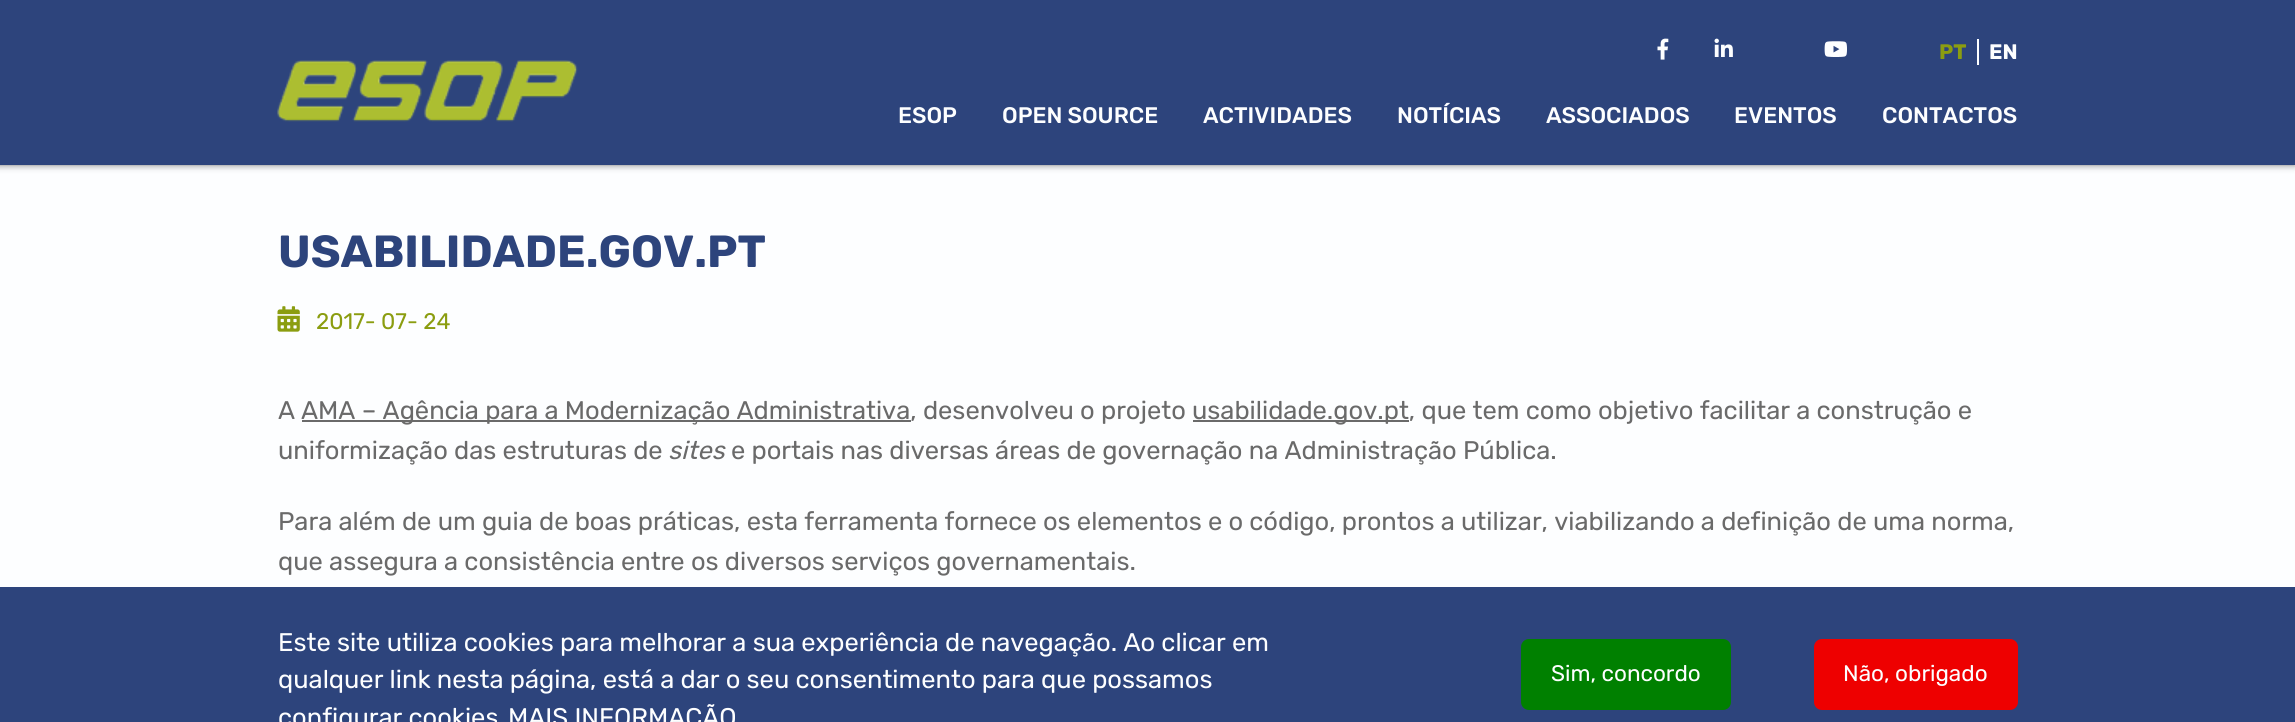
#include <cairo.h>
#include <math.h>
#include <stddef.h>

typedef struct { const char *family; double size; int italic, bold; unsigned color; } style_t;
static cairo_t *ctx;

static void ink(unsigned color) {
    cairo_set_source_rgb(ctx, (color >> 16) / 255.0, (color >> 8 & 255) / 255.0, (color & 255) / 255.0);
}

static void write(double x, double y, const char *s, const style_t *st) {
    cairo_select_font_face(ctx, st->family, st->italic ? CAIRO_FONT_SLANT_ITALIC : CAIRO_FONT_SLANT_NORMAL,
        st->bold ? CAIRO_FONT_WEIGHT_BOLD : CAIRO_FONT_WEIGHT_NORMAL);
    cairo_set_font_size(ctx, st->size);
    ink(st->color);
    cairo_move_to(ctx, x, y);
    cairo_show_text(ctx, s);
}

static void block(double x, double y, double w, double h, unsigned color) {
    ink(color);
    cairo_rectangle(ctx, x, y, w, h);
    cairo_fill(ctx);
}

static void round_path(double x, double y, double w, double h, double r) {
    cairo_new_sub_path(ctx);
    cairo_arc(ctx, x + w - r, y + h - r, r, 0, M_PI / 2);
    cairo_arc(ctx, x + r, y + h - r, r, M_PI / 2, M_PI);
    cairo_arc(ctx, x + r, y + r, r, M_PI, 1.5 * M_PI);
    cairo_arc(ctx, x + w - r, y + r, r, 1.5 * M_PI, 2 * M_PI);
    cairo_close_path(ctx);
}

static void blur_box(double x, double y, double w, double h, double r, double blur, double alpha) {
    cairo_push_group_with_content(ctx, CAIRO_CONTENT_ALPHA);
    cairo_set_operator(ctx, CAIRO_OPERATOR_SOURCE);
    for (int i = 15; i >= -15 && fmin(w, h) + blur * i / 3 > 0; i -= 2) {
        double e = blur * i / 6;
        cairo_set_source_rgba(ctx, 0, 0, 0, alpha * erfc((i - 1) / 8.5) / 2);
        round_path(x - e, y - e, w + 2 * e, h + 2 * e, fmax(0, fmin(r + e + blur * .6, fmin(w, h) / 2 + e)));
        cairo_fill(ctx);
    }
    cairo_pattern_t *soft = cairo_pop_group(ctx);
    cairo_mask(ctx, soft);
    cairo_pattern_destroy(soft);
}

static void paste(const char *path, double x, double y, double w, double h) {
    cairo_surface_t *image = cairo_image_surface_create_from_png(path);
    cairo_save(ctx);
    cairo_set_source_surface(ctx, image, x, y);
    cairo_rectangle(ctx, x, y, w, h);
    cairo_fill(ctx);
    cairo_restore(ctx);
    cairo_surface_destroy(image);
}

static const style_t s1 = {"Rubik", 21, 0, 1, 0x8b9d10};
static const style_t s2 = {"Rubik", 21, 0, 1, 0xfdfeff};
static const style_t s3 = {"Rubik Medium", 22.5, 0, 0, 0xfdfeff};
static const style_t s4 = {"Rubik", 45, 0, 1, 0x2d447c};
static const style_t s5 = {"Rubik", 22.5, 0, 0, 0x8b9d10};
static const style_t s6 = {"Rubik", 25.5, 0, 0, 0x6a6a6a};
static const style_t s7 = {"Rubik", 25.5, 1, 0, 0x6a6a6a};
static const style_t s8 = {"Rubik", 25.5, 0, 0, 0xfdfeff};
static const style_t s9 = {"Rubik", 22.5, 0, 0, 0xfdfeff};

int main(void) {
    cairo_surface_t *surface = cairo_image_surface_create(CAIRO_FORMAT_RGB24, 2295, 722);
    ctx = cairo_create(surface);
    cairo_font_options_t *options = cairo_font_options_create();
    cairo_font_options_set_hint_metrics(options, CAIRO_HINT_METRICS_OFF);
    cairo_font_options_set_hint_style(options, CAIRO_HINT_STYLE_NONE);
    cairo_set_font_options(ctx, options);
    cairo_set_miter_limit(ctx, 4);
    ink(0xfdfeff);
    cairo_paint(ctx);
    ink(0x4d4f4f);
    blur_box(-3, -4, 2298, 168, 0, 4, 1);
    block(0, 0, 2295, 165, 0x2d447c);
    paste("pic1.png", 277, 60, 301, 62);
    paste("pic2.png", 1657, 38, 12, 22);
    paste("pic3.png", 1714, 38, 19, 19);
    paste("pic4.png", 1824, 41, 23, 16);
    write(1939, 59, "PT", &s1);
    write(1989, 59, "EN", &s2);
    block(1977, 39, 2, 26, 0xfdfeff);
    write(898, 123, "ESOP", &s3);
    write(1002, 123, "OPEN SOURCE", &s3);
    write(1203, 123, "ACTIVIDADES", &s3);
    write(1397, 123, "NOTÍCIAS", &s3);
    write(1546, 123, "ASSOCIADOS", &s3);
    write(1734, 123, "EVENTOS", &s3);
    write(1882, 123, "CONTACTOS", &s3);
    write(278, 267, "USABILIDADE.GOV.PT", &s4);
    paste("pic5.png", 277, 306, 23, 26);
    write(316, 329, "2017- 07- 24", &s5);
    write(278, 419, "A", &s6);
    block(302, 420, 609, 2, 0x6a6a6a);
    write(301, 419, "AMA – Agência para a Modernização Administrativa, desenvolveu o projeto", &s6);
    block(1193, 420, 216, 2, 0x6a6a6a);
    write(1192, 419, "usabilidade.gov.pt, que tem como objetivo facilitar a construção e", &s6);
    write(278, 459, "uniformização das estruturas de", &s6);
    write(668, 459, "sites", &s7);
    write(731, 459, "e portais nas diversas áreas de governação na Administração Pública.", &s6);
    write(278, 530, "Para além de um guia de boas práticas, esta ferramenta fornece os elementos e o código, prontos a utilizar, viabilizando a definição de uma norma,", &s6);
    write(278, 570, "que assegura a consistência entre os diversos serviços governamentais.", &s6);
    block(0, 587, 2295, 135, 0x2d447c);
    write(278, 651, "Este site utiliza cookies para melhorar a sua experiência de navegação. Ao clicar em", &s8);
    write(278, 688, "qualquer link nesta página, está a dar o seu consentimento para que possamos", &s8);
    write(278, 726, "configurar cookies", &s8);
    write(508, 726, "MAIS INFORMAÇÃO", &s8);
    ink(0x008000);
    round_path(1521, 639, 210, 71, 8);
    cairo_fill(ctx);
    write(1551, 681, "Sim, concordo", &s9);
    ink(0xee0000);
    round_path(1814, 639, 204, 71, 8);
    cairo_fill(ctx);
    write(1843, 681, "Não, obrigado", &s9);
    cairo_surface_write_to_png(surface, "screenshot.png");
    cairo_font_options_destroy(options);
    cairo_destroy(ctx);
    cairo_surface_destroy(surface);
    return 0;
}
